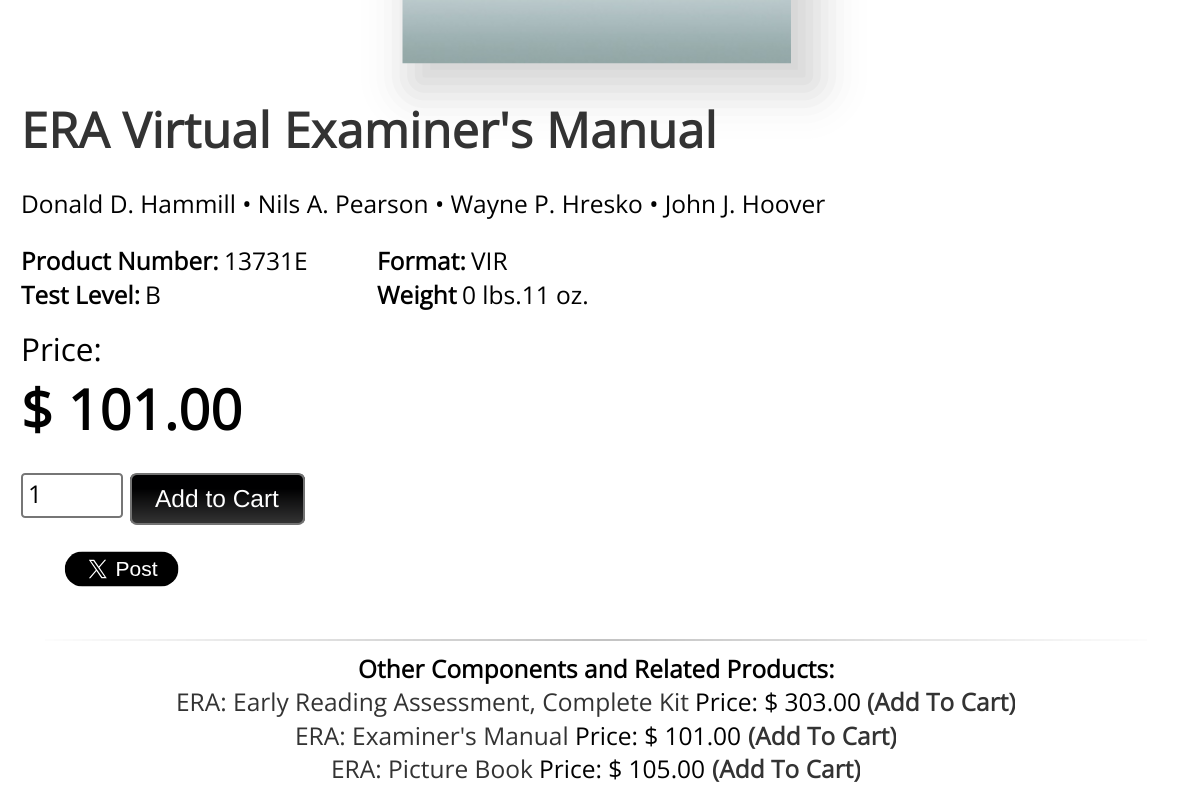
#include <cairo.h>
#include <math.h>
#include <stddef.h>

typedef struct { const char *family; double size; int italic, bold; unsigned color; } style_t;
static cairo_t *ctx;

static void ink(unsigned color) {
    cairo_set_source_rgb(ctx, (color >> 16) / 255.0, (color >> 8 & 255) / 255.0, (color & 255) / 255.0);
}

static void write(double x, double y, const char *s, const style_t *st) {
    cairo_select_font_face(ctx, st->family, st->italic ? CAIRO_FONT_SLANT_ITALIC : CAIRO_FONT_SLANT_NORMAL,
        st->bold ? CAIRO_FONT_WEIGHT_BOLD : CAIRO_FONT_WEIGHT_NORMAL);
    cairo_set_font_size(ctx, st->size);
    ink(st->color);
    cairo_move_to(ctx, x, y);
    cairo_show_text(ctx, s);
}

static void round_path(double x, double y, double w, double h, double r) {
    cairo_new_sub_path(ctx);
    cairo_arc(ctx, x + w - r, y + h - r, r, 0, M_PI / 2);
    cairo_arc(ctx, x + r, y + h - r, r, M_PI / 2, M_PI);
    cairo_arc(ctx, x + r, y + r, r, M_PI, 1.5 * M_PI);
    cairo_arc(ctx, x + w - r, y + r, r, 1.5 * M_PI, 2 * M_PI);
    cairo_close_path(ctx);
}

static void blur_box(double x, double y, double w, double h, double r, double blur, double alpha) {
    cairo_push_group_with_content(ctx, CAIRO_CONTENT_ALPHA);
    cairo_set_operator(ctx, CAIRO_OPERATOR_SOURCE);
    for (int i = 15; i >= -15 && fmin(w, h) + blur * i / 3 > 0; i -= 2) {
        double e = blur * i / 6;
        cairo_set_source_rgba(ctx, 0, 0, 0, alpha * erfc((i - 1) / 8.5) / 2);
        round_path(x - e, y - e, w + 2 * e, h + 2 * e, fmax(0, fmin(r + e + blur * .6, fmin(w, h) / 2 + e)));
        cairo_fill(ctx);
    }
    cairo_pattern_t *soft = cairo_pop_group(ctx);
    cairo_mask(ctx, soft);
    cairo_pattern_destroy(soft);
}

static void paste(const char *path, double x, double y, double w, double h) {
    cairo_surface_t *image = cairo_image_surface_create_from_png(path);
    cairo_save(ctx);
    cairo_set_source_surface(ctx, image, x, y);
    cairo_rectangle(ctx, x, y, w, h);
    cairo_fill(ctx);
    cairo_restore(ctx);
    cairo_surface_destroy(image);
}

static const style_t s1 = {"Open Sans", 49, 0, 1, 0x333333};
static const style_t s2 = {"Open Sans", 24.5, 0, 0, 0x000000};
static const style_t s3 = {"Open Sans", 24.5, 0, 1, 0x000000};
static const style_t s4 = {"Open Sans", 31.5, 0, 0, 0x000000};
static const style_t s5 = {"Open Sans", 56, 0, 1, 0x000000};
static const style_t s6 = {"Liberation Sans", 24.5, 0, 0, 0xffffff};
static const style_t s7 = {"Open Sans", 24.5, 0, 0, 0x333333};
static const style_t s8 = {"Open Sans", 24.5, 0, 1, 0x333333};

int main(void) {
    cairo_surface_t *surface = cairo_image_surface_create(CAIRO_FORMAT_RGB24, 1191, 805);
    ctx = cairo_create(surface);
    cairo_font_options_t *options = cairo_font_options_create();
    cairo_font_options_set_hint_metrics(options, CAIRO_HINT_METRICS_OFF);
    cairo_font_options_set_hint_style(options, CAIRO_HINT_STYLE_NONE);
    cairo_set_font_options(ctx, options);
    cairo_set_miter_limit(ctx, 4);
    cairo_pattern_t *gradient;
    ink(0xffffff);
    cairo_paint(ctx);
    ink(0xd1d1d1);
    blur_box(411, -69, 406, 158, 0, 23, 1);
    paste("pic1.png", 402, 0, 389, 64);
    write(21, 148, "ERA Virtual Examiner's Manual", &s1);
    write(21, 213, "Donald D. Hammill • Nils A. Pearson • Wayne P. Hresko • John J. Hoover", &s2);
    write(21, 270, "Product Number:", &s3);
    write(224, 270, "13731E", &s2);
    write(21, 304, "Test Level:", &s3);
    write(145, 304, "B", &s2);
    write(377, 270, "Format:", &s3);
    write(471, 270, "VIR", &s2);
    write(377, 304, "Weight", &s3);
    write(462, 304, "0 lbs.11 oz.", &s2);
    write(21, 361, "Price:", &s4);
    write(21, 430, "$ 101.00", &s5);
    round_path(22, 474, 100, 43, 3);
    ink(0x767676);
    cairo_stroke(ctx);
    write(28, 503, "1", &s2);
    cairo_save(ctx);
    round_path(130, 473, 175, 52, 7);
    cairo_clip(ctx);
    gradient = cairo_pattern_create_linear(217, 474, 217, 523);
    cairo_pattern_add_color_stop_rgba(gradient, 0.3, 0, 0, 0.004, 1);
    cairo_pattern_add_color_stop_rgba(gradient, 1, 0.2, 0.2, 0.2, 1);
    cairo_set_source(ctx, gradient);
    cairo_pattern_destroy(gradient);
    cairo_rectangle(ctx, 130, 474, 175, 49);
    cairo_fill(ctx);
    cairo_restore(ctx);
    round_path(131, 474, 173, 50, 6);
    ink(0x737373);
    cairo_stroke(ctx);
    write(155, 507, "Add to Cart", &s6);
    paste("pic2.png", 64, 551, 115, 36);
    gradient = cairo_pattern_create_linear(21, 640, 1171, 640);
    cairo_pattern_add_color_stop_rgba(gradient, 0, 1, 1, 1, 1);
    cairo_pattern_add_color_stop_rgba(gradient, 0.5, 0.761, 0.761, 0.761, 1);
    cairo_pattern_add_color_stop_rgba(gradient, 1, 1, 1, 1, 1);
    cairo_set_source(ctx, gradient);
    cairo_pattern_destroy(gradient);
    cairo_rectangle(ctx, 45, 639, 1102, 2);
    cairo_fill(ctx);
    write(358, 678, "Other Components and Related Products:", &s3);
    write(176, 711, "ERA: Early Reading Assessment, Complete Kit", &s7);
    write(695, 711, "Price: $ 303.00", &s2);
    write(867, 711, "(Add To Cart)", &s8);
    write(295, 745, "ERA: Examiner's Manual", &s7);
    write(575, 745, "Price: $ 101.00", &s2);
    write(748, 745, "(Add To Cart)", &s8);
    write(331, 778, "ERA: Picture Book", &s7);
    write(539, 778, "Price: $ 105.00", &s2);
    write(712, 778, "(Add To Cart)", &s8);
    cairo_surface_write_to_png(surface, "screenshot.png");
    cairo_font_options_destroy(options);
    cairo_destroy(ctx);
    cairo_surface_destroy(surface);
    return 0;
}
